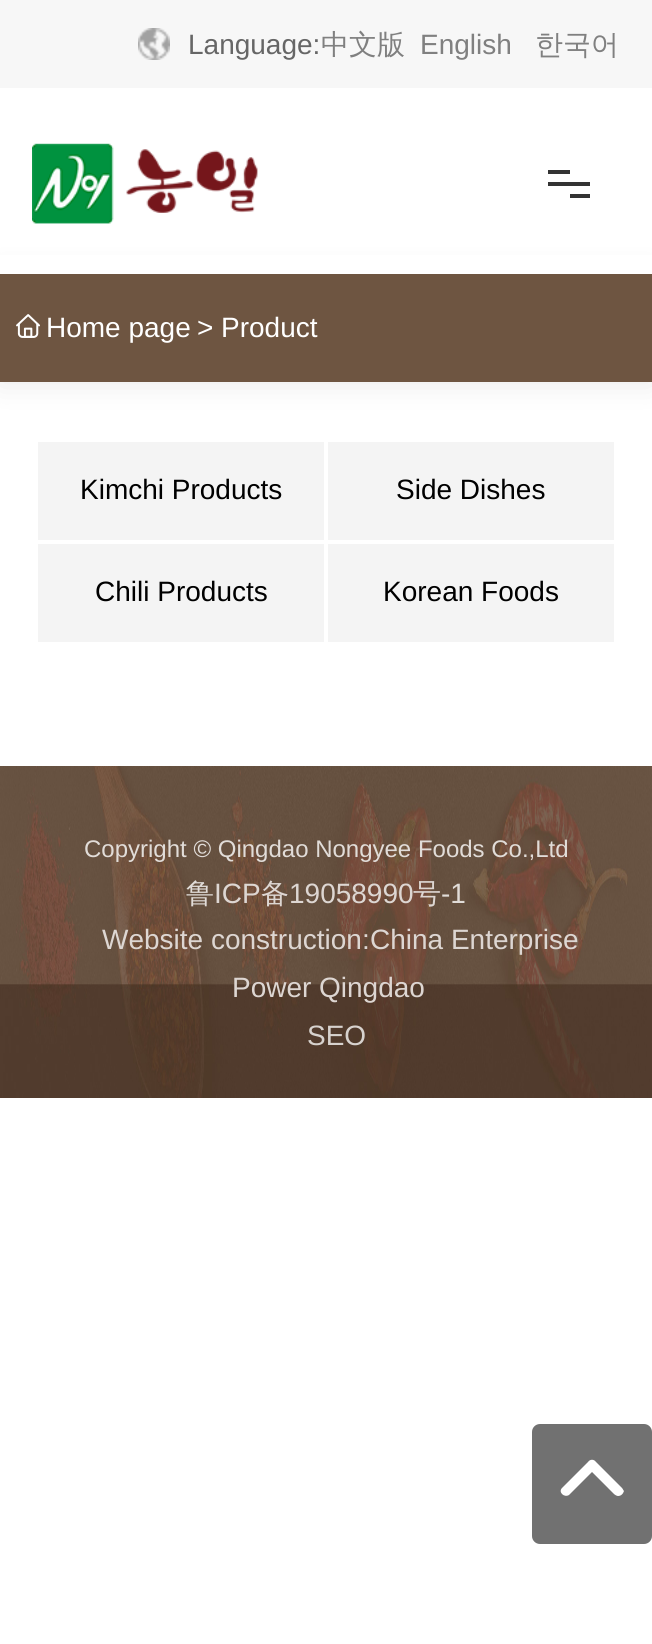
#include <cairo.h>
#include <math.h>
#include <stddef.h>

typedef struct { const char *family; double size; int italic, bold; unsigned color; } style_t;
static cairo_t *ctx;

static void ink(unsigned color) {
    cairo_set_source_rgb(ctx, (color >> 16) / 255.0, (color >> 8 & 255) / 255.0, (color & 255) / 255.0);
}

static void write(double x, double y, const char *s, const style_t *st) {
    cairo_select_font_face(ctx, st->family, st->italic ? CAIRO_FONT_SLANT_ITALIC : CAIRO_FONT_SLANT_NORMAL,
        st->bold ? CAIRO_FONT_WEIGHT_BOLD : CAIRO_FONT_WEIGHT_NORMAL);
    cairo_set_font_size(ctx, st->size);
    ink(st->color);
    cairo_move_to(ctx, x, y);
    cairo_show_text(ctx, s);
}

static void block(double x, double y, double w, double h, unsigned color) {
    ink(color);
    cairo_rectangle(ctx, x, y, w, h);
    cairo_fill(ctx);
}

static void round_path(double x, double y, double w, double h, double r) {
    cairo_new_sub_path(ctx);
    cairo_arc(ctx, x + w - r, y + h - r, r, 0, M_PI / 2);
    cairo_arc(ctx, x + r, y + h - r, r, M_PI / 2, M_PI);
    cairo_arc(ctx, x + r, y + r, r, M_PI, 1.5 * M_PI);
    cairo_arc(ctx, x + w - r, y + r, r, 1.5 * M_PI, 2 * M_PI);
    cairo_close_path(ctx);
}

static void blur_box(double x, double y, double w, double h, double r, double blur, double alpha) {
    cairo_push_group_with_content(ctx, CAIRO_CONTENT_ALPHA);
    cairo_set_operator(ctx, CAIRO_OPERATOR_SOURCE);
    for (int i = 15; i >= -15 && fmin(w, h) + blur * i / 3 > 0; i -= 2) {
        double e = blur * i / 6;
        cairo_set_source_rgba(ctx, 0, 0, 0, alpha * erfc((i - 1) / 8.5) / 2);
        round_path(x - e, y - e, w + 2 * e, h + 2 * e, fmax(0, fmin(r + e + blur * .6, fmin(w, h) / 2 + e)));
        cairo_fill(ctx);
    }
    cairo_pattern_t *soft = cairo_pop_group(ctx);
    cairo_mask(ctx, soft);
    cairo_pattern_destroy(soft);
}

static void paste(const char *path, double x, double y, double w, double h) {
    cairo_surface_t *image = cairo_image_surface_create_from_png(path);
    cairo_save(ctx);
    cairo_set_source_surface(ctx, image, x, y);
    cairo_rectangle(ctx, x, y, w, h);
    cairo_fill(ctx);
    cairo_restore(ctx);
    cairo_surface_destroy(image);
}

static const style_t s1 = {"Liberation Sans", 28, 0, 0, 0x666666};
static const style_t s2 = {"WenQuanYi Zen Hei Medium", 28, 0, 0, 0x808080};
static const style_t s3 = {"Liberation Sans", 28, 0, 0, 0x808080};
static const style_t s4 = {"Liberation Sans", 28, 0, 0, 0xffffff};
static const style_t s5 = {"Liberation Sans", 28, 0, 0, 0x000000};
static const style_t s6 = {"Liberation Sans", 24, 0, 0, 0xe1dcd8};
static const style_t s7 = {"WenQuanYi Zen Hei Medium", 28, 0, 0, 0xe1dcd8};
static const style_t s8 = {"Liberation Sans", 28, 0, 0, 0xddd6d2};
static const style_t s9 = {"WenQuanYi Zen Hei Medium", 28, 0, 0, 0xddd6d2};
static const style_t s10 = {"Liberation Sans", 28, 0, 0, 0xe1dcd8};
static const style_t s11 = {"Liberation Sans", 28, 0, 0, 0xd7d2ce};

int main(void) {
    cairo_surface_t *surface = cairo_image_surface_create(CAIRO_FORMAT_RGB24, 652, 1644);
    ctx = cairo_create(surface);
    cairo_font_options_t *options = cairo_font_options_create();
    cairo_font_options_set_hint_metrics(options, CAIRO_HINT_METRICS_OFF);
    cairo_font_options_set_hint_style(options, CAIRO_HINT_STYLE_NONE);
    cairo_set_font_options(ctx, options);
    cairo_set_miter_limit(ctx, 4);
    ink(0xffffff);
    cairo_paint(ctx);
    block(0, 0, 652, 88, 0xf7f7f7);
    paste("pic1.png", 138, 28, 32, 32);
    write(188, 54, "Language:", &s1);
    write(321, 54, "中文版", &s2);
    write(420, 54, "English", &s3);
    write(535, 54, "한국어", &s2);
    ink(0x000000);
    blur_box(0, 274, 652, 108, 0, 15, 0.1);
    block(0, 255, 652, 19, 0xffffff);
    paste("pic2.png", 32, 143, 226, 81);
    block(548, 170, 22, 4, 0x333333);
    block(548, 182, 42, 4, 0x333333);
    block(570, 194, 20, 4, 0x333333);
    block(0, 274, 652, 108, 0x6e5541);
    paste("pic3.png", 16, 314, 24, 24);
    write(46, 337, "Home page", &s4);
    write(197, 337, ">", &s4);
    write(221, 337, "Product", &s4);
    block(38, 442, 286, 98, 0xf4f4f4);
    write(80, 499, "Kimchi Products", &s5);
    block(328, 442, 286, 98, 0xf4f4f4);
    write(396, 499, "Side Dishes", &s5);
    block(38, 544, 286, 98, 0xf4f4f4);
    write(95, 601, "Chili Products", &s5);
    block(328, 544, 286, 98, 0xf4f4f4);
    write(383, 601, "Korean Foods", &s5);
    paste("pic4.png", 0, 766, 652, 332);
    write(84, 857, "Copyright © Qingdao Nongyee Foods Co.,Ltd", &s6);
    write(186, 903, "鲁", &s7);
    write(214, 903, "ICP", &s8);
    write(261, 903, "备", &s9);
    write(289, 903, "19058990", &s8);
    write(413, 903, "号", &s9);
    write(441, 903, "-1", &s10);
    write(102, 949, "Website construction:", &s8);
    write(370, 949, "China Enterprise", &s8);
    write(232, 997, "Power", &s8);
    write(319, 997, "Qingdao", &s8);
    write(307, 1045, "SEO", &s11);
    ink(0x717171);
    round_path(532, 1424, 120, 120, 8);
    cairo_fill(ctx);
    ink(0xffffff);
    cairo_new_path(ctx);
    cairo_move_to(ctx, 562, 1488);
    cairo_curve_to(ctx, 558, 1492, 564, 1498, 569, 1495);
    cairo_line_to(ctx, 592, 1472);
    cairo_line_to(ctx, 614, 1494);
    cairo_curve_to(ctx, 615, 1495, 617, 1496, 618, 1496);
    cairo_curve_to(ctx, 621, 1496, 623, 1494, 624, 1491);
    cairo_curve_to(ctx, 623, 1490, 623, 1489, 622, 1488);
    cairo_line_to(ctx, 596, 1462);
    cairo_curve_to(ctx, 594, 1459, 590, 1459, 588, 1462);
    cairo_close_path(ctx);
    cairo_fill(ctx);
    cairo_surface_write_to_png(surface, "screenshot.png");
    cairo_font_options_destroy(options);
    cairo_destroy(ctx);
    cairo_surface_destroy(surface);
    return 0;
}
